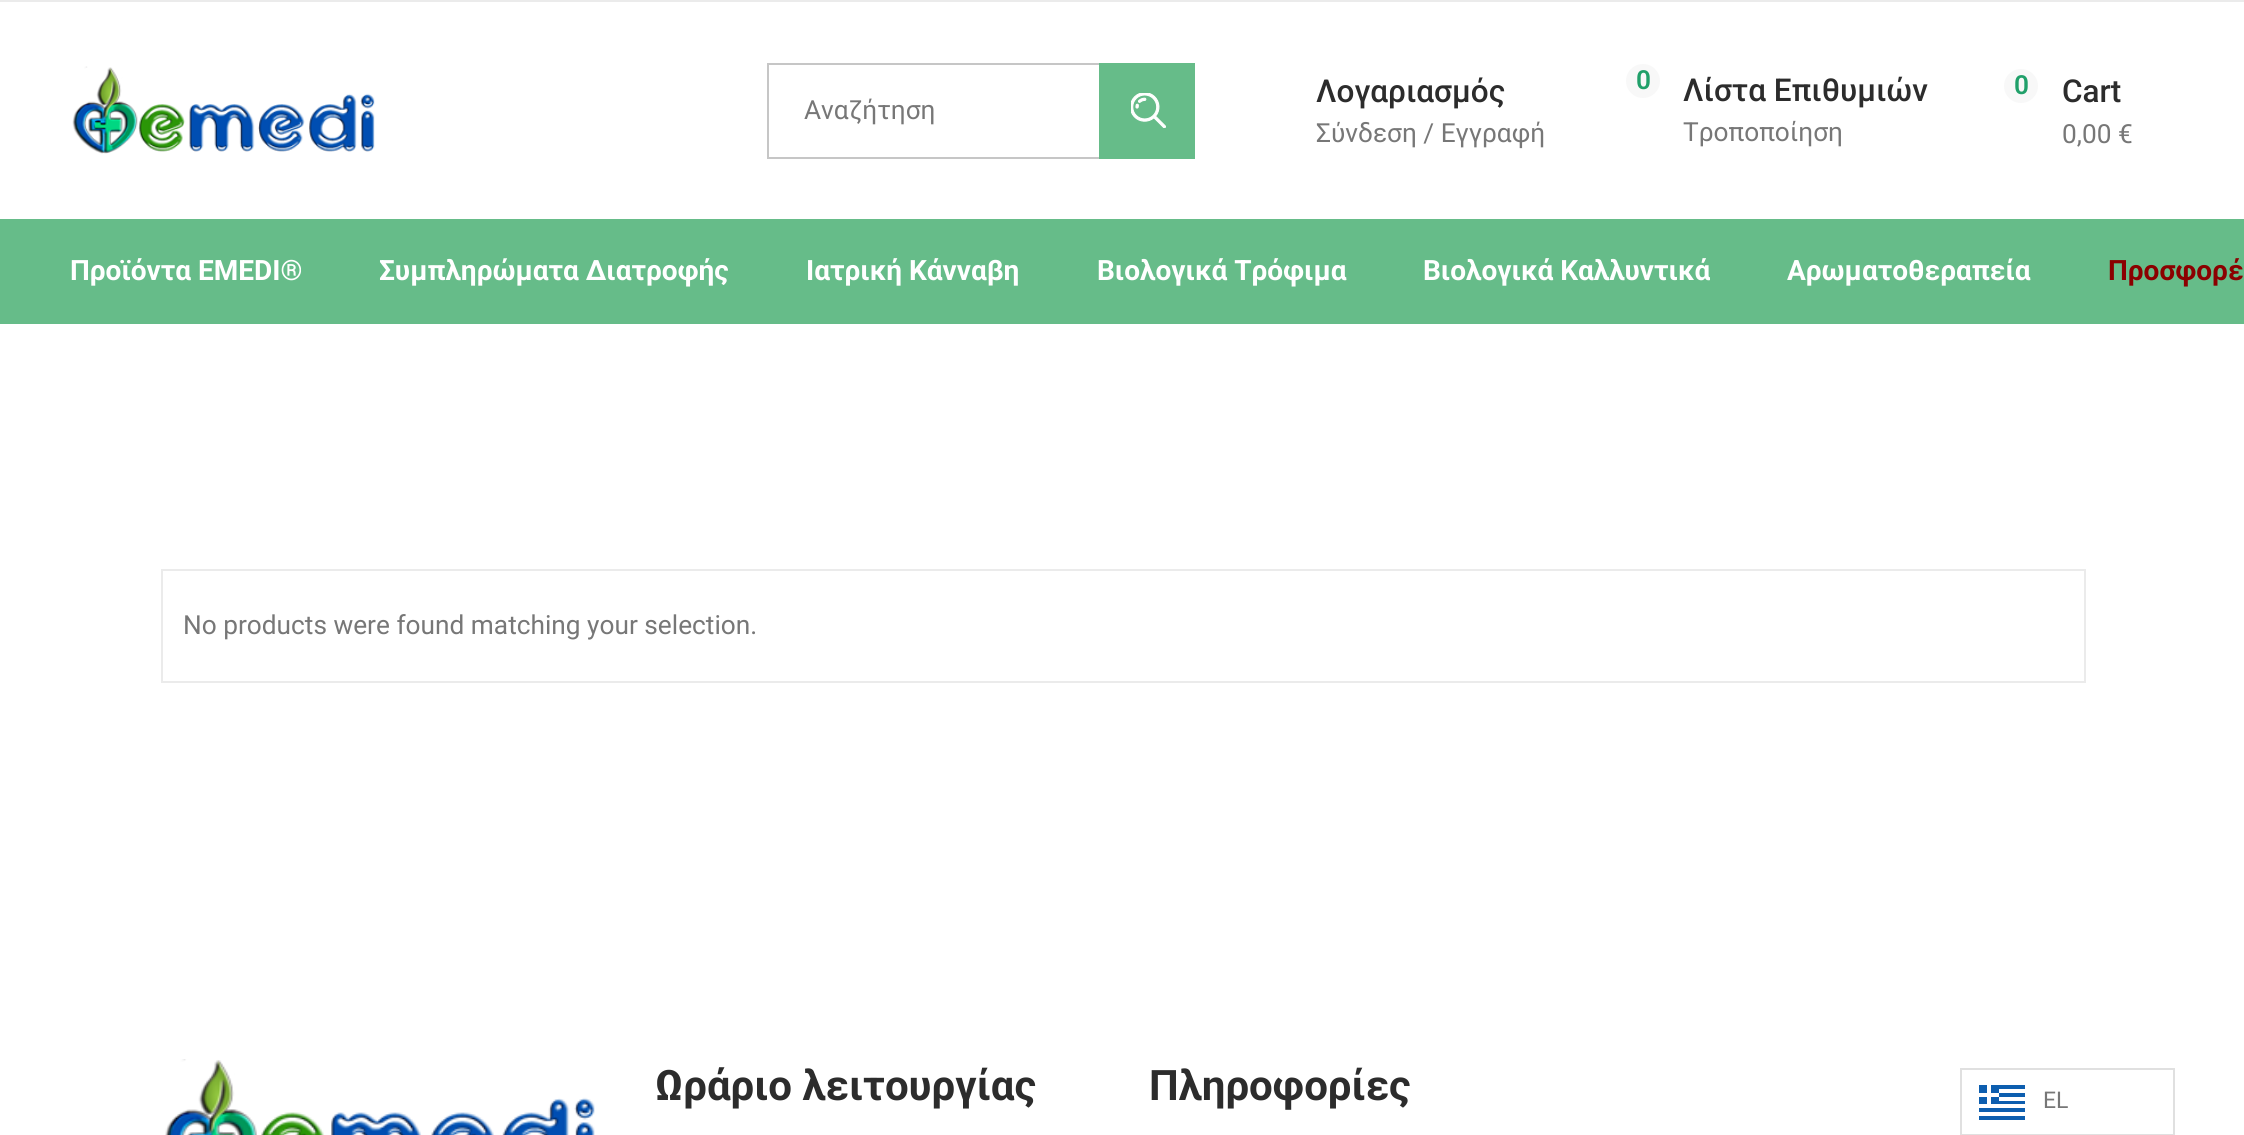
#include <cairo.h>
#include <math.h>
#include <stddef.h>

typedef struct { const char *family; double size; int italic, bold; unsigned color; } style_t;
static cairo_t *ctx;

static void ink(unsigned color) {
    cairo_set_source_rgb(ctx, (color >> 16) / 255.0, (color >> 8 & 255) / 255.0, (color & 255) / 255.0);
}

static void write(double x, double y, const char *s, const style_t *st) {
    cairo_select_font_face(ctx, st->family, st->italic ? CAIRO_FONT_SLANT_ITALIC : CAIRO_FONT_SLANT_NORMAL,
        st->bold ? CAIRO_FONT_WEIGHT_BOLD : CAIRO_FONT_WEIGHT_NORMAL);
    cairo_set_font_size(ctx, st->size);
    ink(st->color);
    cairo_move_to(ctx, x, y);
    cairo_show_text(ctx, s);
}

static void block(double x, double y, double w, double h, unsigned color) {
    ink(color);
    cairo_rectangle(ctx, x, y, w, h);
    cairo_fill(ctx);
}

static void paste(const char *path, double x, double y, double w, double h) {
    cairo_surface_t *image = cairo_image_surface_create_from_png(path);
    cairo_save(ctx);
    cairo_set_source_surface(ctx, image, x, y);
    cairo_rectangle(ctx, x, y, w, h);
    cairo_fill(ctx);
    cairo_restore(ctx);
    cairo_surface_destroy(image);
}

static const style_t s1 = {"Roboto", 26.25, 0, 0, 0x777777};
static const style_t s2 = {"Roboto Medium", 31.5, 0, 0, 0x2c2c2c};
static const style_t s3 = {"Roboto SemiBold", 26.25, 0, 0, 0x21a06a};
static const style_t s4 = {"Roboto", 28, 0, 1, 0xffffff};
static const style_t s5 = {"Roboto", 28, 0, 1, 0x8b0000};
static const style_t s6 = {"Roboto", 42, 0, 1, 0x2c2c2c};
static const style_t s7 = {"Roboto", 23, 0, 0, 0x777777};

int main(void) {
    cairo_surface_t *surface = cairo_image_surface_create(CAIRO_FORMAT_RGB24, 2244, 1135);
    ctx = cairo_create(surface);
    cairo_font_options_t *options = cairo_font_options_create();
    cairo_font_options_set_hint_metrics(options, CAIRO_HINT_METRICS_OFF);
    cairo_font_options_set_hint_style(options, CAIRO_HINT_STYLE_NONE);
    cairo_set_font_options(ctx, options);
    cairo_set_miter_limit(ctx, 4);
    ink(0xffffff);
    cairo_paint(ctx);
    block(0, 0, 2244, 2, 0xebebeb);
    paste("pic1.png", 72, 66, 303, 88);
    cairo_rectangle(ctx, 768, 64, 426, 94);
    ink(0xc6c6c6);
    cairo_stroke(ctx);
    write(804, 119, "Αναζήτηση", &s1);
    block(1099, 63, 96, 96, 0x66bc89);
    paste("pic2.png", 1131, 93, 35, 35);
    write(1316, 102, "Λογαριασμός", &s2);
    write(1316, 142, "Σύνδεση / Εγγραφή", &s1);
    ink(0xf8f8f8);
    cairo_new_path(ctx);
    cairo_arc(ctx, 1643, 81, 19, 0, 2 * M_PI);
    cairo_fill_preserve(ctx);
    ink(0xffffff);
    cairo_set_line_width(ctx, 4);
    cairo_stroke(ctx);
    write(1636, 89, "0", &s3);
    write(1683, 101, "Λίστα Επιθυμιών", &s2);
    write(1683, 141, "Τροποποίηση", &s1);
    ink(0xf8f8f8);
    cairo_new_path(ctx);
    cairo_arc(ctx, 2021, 86, 19, 0, 2 * M_PI);
    cairo_fill_preserve(ctx);
    ink(0xffffff);
    cairo_stroke(ctx);
    write(2014, 94, "0", &s3);
    write(2062, 102, "Cart", &s2);
    write(2062, 143, "0,00 €", &s1);
    block(0, 219, 2244, 105, 0x66bc89);
    write(70, 280, "Προϊόντα EMEDI®", &s4);
    write(379, 280, "Συμπληρώματα Διατροφής", &s4);
    write(806, 280, "Ιατρική Κάνναβη", &s4);
    write(1097, 280, "Βιολογικά Τρόφιμα", &s4);
    write(1423, 280, "Βιολογικά Καλλυντικά", &s4);
    write(1787, 280, "Αρωματοθεραπεία", &s4);
    write(2108, 280, "Προσφορέ", &s5);
    cairo_rectangle(ctx, 162, 570, 1923, 112);
    ink(0xebebeb);
    cairo_set_line_width(ctx, 2);
    cairo_stroke(ctx);
    write(183, 634, "No products were found matching your selection.", &s1);
    paste("pic3.png", 165, 1059, 430, 76);
    write(655, 1100, "Ωράριο λειτουργίας", &s6);
    write(1149, 1100, "Πληροφορίες", &s6);
    cairo_rectangle(ctx, 1961, 1069, 213, 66);
    ink(0xe0e0e0);
    cairo_stroke(ctx);
    paste("pic4.png", 1979, 1085, 46, 35);
    write(2043, 1108, "EL", &s7);
    cairo_surface_write_to_png(surface, "screenshot.png");
    cairo_font_options_destroy(options);
    cairo_destroy(ctx);
    cairo_surface_destroy(surface);
    return 0;
}
